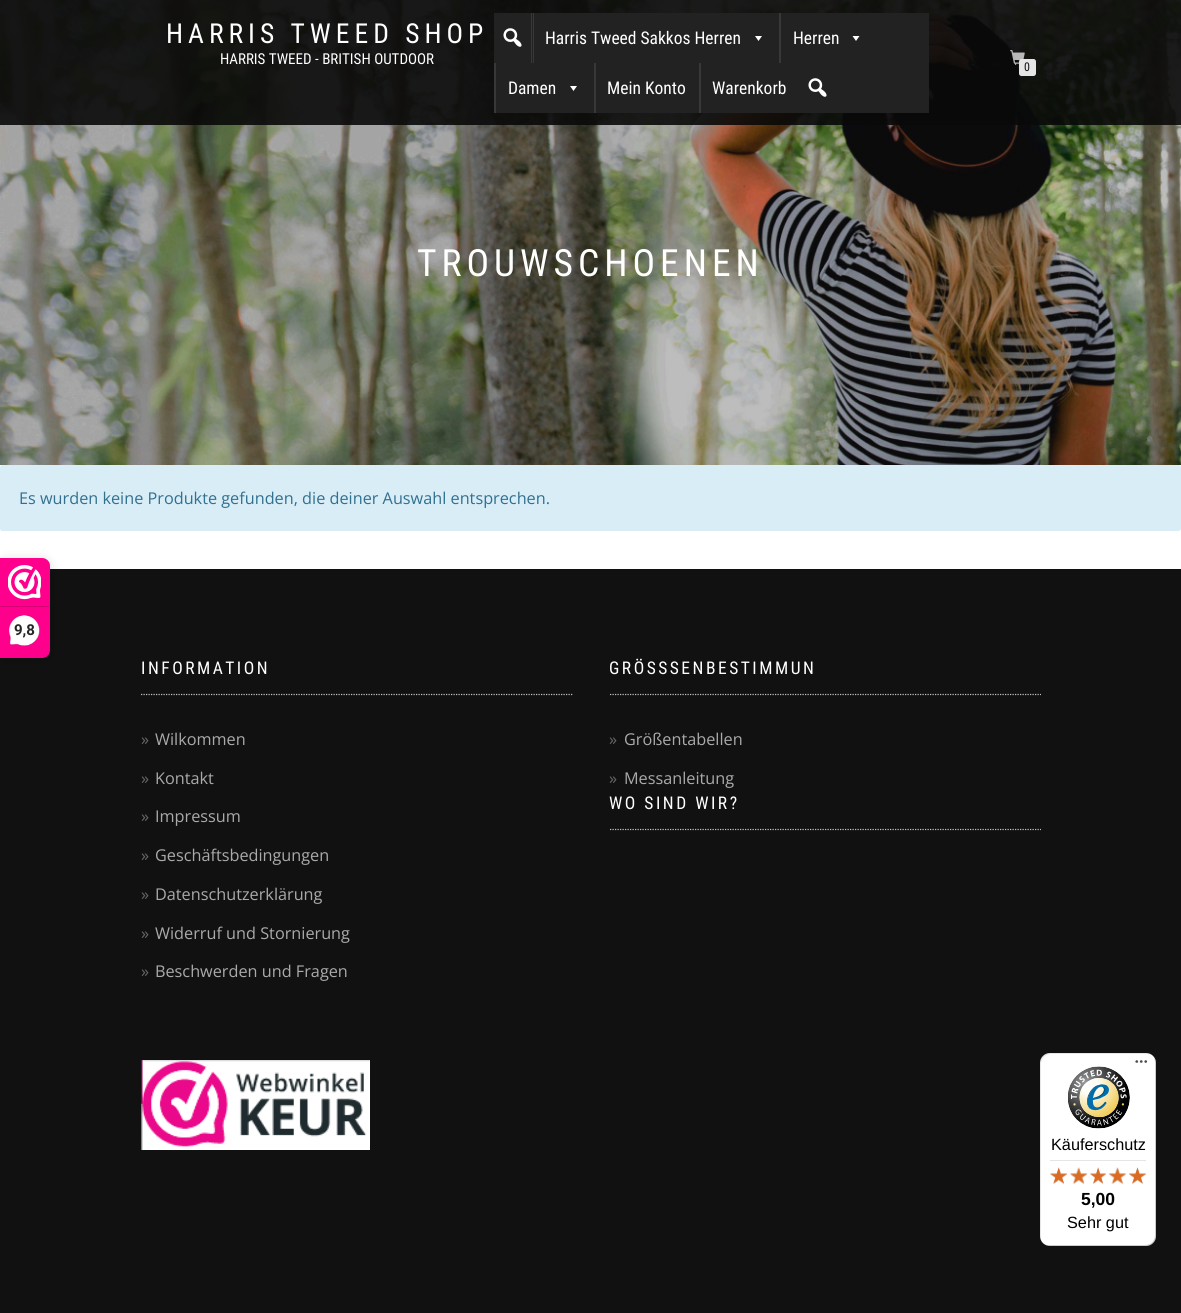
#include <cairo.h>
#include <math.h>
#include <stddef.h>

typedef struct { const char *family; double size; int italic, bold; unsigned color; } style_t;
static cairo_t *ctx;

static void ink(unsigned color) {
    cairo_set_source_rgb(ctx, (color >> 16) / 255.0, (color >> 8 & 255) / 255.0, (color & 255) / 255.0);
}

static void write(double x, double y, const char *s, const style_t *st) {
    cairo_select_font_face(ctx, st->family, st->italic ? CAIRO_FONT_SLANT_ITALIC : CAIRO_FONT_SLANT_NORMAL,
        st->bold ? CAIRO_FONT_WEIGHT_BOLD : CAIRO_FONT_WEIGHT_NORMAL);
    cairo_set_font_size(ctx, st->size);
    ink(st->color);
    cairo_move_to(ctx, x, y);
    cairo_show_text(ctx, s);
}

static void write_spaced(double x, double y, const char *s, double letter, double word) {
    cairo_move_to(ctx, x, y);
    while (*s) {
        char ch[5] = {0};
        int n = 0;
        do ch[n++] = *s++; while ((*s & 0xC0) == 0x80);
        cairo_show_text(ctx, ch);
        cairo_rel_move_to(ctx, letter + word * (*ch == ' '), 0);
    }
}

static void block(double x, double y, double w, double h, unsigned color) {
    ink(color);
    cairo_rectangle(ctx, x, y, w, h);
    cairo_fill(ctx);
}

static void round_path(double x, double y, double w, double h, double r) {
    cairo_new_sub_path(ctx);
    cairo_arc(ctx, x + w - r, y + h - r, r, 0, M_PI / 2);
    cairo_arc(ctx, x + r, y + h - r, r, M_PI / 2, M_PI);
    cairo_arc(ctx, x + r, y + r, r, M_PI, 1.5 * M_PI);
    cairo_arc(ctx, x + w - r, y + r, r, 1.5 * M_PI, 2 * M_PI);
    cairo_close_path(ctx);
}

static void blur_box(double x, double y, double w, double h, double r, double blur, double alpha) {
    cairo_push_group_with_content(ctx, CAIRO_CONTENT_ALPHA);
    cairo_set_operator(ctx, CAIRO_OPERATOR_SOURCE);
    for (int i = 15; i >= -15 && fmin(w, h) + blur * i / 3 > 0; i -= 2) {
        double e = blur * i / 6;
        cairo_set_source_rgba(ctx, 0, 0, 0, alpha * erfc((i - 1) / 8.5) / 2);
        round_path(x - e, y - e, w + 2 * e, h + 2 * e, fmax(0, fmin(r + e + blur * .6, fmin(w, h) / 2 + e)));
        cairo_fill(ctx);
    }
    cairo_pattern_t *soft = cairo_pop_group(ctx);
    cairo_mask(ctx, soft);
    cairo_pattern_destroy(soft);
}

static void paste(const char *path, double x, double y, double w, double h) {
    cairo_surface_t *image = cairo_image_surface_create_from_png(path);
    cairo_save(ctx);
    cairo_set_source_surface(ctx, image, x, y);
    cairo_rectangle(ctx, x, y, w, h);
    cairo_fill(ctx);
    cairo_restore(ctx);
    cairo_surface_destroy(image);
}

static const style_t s1 = {"Roboto Condensed", 15, 0, 0, 0xffffff};
static const style_t s2 = {"Roboto Condensed", 17.5, 0, 0, 0xffffff};
static const style_t s3 = {"Roboto Condensed", 12, 0, 0, 0x111111};
static const style_t s4 = {"Open Sans", 16.25, 0, 0, 0x31708f};
static const style_t s5 = {"Roboto", 15, 0, 1, 0x272626};
static const style_t s6 = {"Open Sans", 16.25, 0, 0, 0x666666};
static const style_t s7 = {"Open Sans", 16.25, 0, 0, 0xaaaaaa};
static const style_t s8 = {"Liberation Sans", 16.25, 0, 0, 0x000000};
static const style_t s9 = {"Liberation Sans", 17.5, 0, 1, 0x000000};

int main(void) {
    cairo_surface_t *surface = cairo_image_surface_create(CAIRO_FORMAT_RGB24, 1181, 1313);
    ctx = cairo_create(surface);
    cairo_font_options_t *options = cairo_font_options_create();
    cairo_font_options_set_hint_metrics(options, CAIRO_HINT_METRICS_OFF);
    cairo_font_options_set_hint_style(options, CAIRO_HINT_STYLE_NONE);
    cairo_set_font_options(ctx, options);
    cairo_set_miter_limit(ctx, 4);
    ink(0xffffff);
    cairo_paint(ctx);
    paste("pic3.png", 0, 0, 1181, 465);
    cairo_set_source_rgba(ctx, 0.039, 0.039, 0.039, 0.9);
    cairo_rectangle(ctx, 0, 0, 1181, 125);
    cairo_fill(ctx);
    cairo_select_font_face(ctx, "Roboto Condensed", CAIRO_FONT_SLANT_NORMAL, CAIRO_FONT_WEIGHT_NORMAL);
    cairo_set_font_size(ctx, 27.5);
    ink(0xffffff);
    write_spaced(166, 43, "HARRIS TWEED SHOP", 5, 0);
    write(220, 64, "HARRIS TWEED - BRITISH OUTDOOR", &s1);
    block(494, 13, 435, 100, 0x222222);
    paste("pic1.png", 503, 28, 19, 19);
    block(533, 13, 1, 50, 0x383838);
    block(531, 13, 1, 50, 0x383838);
    write(545, 44, "Harris Tweed Sakkos Herren", &s2);
    cairo_new_path(ctx);
    cairo_move_to(ctx, 762, 36);
    cairo_line_to(ctx, 758.5, 41);
    cairo_line_to(ctx, 755, 36);
    cairo_close_path(ctx);
    cairo_fill(ctx);
    block(779, 13, 2, 50, 0x383838);
    write(793, 44, "Herren", &s2);
    cairo_new_path(ctx);
    cairo_move_to(ctx, 859.5, 36);
    cairo_line_to(ctx, 856, 41);
    cairo_line_to(ctx, 852.5, 36);
    cairo_close_path(ctx);
    cairo_fill(ctx);
    block(494, 63, 2, 50, 0x383838);
    write(508, 94, "Damen", &s2);
    cairo_new_path(ctx);
    cairo_move_to(ctx, 577, 86);
    cairo_line_to(ctx, 573.5, 91);
    cairo_line_to(ctx, 570, 86);
    cairo_close_path(ctx);
    cairo_fill(ctx);
    block(594, 63, 2, 50, 0x383838);
    write(607, 94, "Mein Konto", &s2);
    block(699, 63, 2, 50, 0x383838);
    write(712, 94, "Warenkorb", &s2);
    paste("pic1.png", 808, 78, 19, 19);
    paste("pic2.png", 1010, 50, 15, 15);
    ink(0xe5e5e5);
    round_path(1019, 59, 17, 17, 2.5);
    cairo_fill(ctx);
    write(1024, 71, "0", &s3);
    cairo_set_font_size(ctx, 37.5);
    ink(0xffffff);
    write_spaced(417, 276, "TROUWSCHOENEN", 5, 0);
    ink(0xd9edf7);
    round_path(0, 465, 1181, 66, 2.5);
    cairo_fill(ctx);
    write(19, 504, "Es wurden keine Produkte gefunden, die deiner Auswahl entsprechen.", &s4);
    block(0, 569, 1181, 744, 0x111111);
    ink(0x000000);
    blur_box(0, 560, 50, 100, 8, 6, 0.15);
    ink(0xfe008c);
    cairo_new_path(ctx);
    cairo_move_to(ctx, 0, 558);
    cairo_line_to(ctx, 42, 558);
    cairo_curve_to(ctx, 46.5, 558, 50, 561.5, 50, 566);
    cairo_line_to(ctx, 50, 650);
    cairo_curve_to(ctx, 50, 654.5, 46.5, 658, 42, 658);
    cairo_line_to(ctx, 0, 658);
    cairo_close_path(ctx);
    cairo_fill(ctx);
    paste("pic4.png", 8, 565, 33, 35);
    block(0, 606, 49, 1, 0xd80077);
    paste("pic5.png", 9, 615, 31, 31);
    write(14, 635, "9,8", &s5);
    cairo_new_path(ctx);
    cairo_move_to(ctx, 141, 694.5);
    cairo_line_to(ctx, 572.5, 694.5);
    ink(0xc2c2c2);
    cairo_set_line_width(ctx, 1.2);
    cairo_set_dash(ctx, (double[]){1.25, 1.25}, 2, 0);
    cairo_stroke(ctx);
    cairo_select_font_face(ctx, "Roboto Condensed", CAIRO_FONT_SLANT_NORMAL, CAIRO_FONT_WEIGHT_NORMAL);
    cairo_set_font_size(ctx, 17.5);
    ink(0xffffff);
    write_spaced(141, 674, "INFORMATION", 2.5, 0);
    write(141, 745, "»", &s6);
    write(155, 745, "Wilkommen", &s7);
    write(141, 784, "»", &s6);
    write(155, 784, "Kontakt", &s7);
    write(141, 822, "»", &s6);
    write(155, 822, "Impressum", &s7);
    write(141, 861, "»", &s6);
    write(155, 861, "Geschäftsbedingungen", &s7);
    write(141, 900, "»", &s6);
    write(155, 900, "Datenschutzerklärung", &s7);
    write(141, 939, "»", &s6);
    write(155, 939, "Widerruf und Stornierung", &s7);
    write(141, 977, "»", &s6);
    write(155, 977, "Beschwerden und Fragen", &s7);
    paste("pic6.png", 141, 1060, 229, 90);
    cairo_new_path(ctx);
    cairo_move_to(ctx, 610, 694.5);
    cairo_line_to(ctx, 1041, 694.5);
    ink(0xc2c2c2);
    cairo_stroke(ctx);
    cairo_select_font_face(ctx, "Roboto Condensed", CAIRO_FONT_SLANT_NORMAL, CAIRO_FONT_WEIGHT_NORMAL);
    cairo_set_font_size(ctx, 17.5);
    ink(0xffffff);
    write_spaced(609, 674, "GRÖSSSENBESTIMMUN", 2.5, 0);
    write(609, 745, "»", &s6);
    write(624, 745, "Größentabellen", &s7);
    write(609, 784, "»", &s6);
    write(624, 784, "Messanleitung", &s7);
    cairo_new_path(ctx);
    cairo_move_to(ctx, 610, 829.5);
    cairo_line_to(ctx, 1041, 829.5);
    ink(0xc2c2c2);
    cairo_stroke(ctx);
    cairo_select_font_face(ctx, "Roboto Condensed", CAIRO_FONT_SLANT_NORMAL, CAIRO_FONT_WEIGHT_NORMAL);
    cairo_set_font_size(ctx, 17.5);
    ink(0xffffff);
    write_spaced(609, 809, "WO SIND WIR?", 2.5, 0);
    round_path(1040, 1053, 116, 193, 10);
    cairo_fill(ctx);
    cairo_set_source_rgba(ctx, 0, 0, 0, 0.1);
    cairo_new_path(ctx);
    cairo_move_to(ctx, 1051, 1054);
    cairo_line_to(ctx, 1148, 1054);
    cairo_line_to(ctx, 1152, 1055);
    cairo_curve_to(ctx, 1150, 1054, 1148, 1053, 1146, 1053);
    cairo_line_to(ctx, 1050, 1053);
    cairo_curve_to(ctx, 1044, 1053, 1040, 1057, 1040, 1063);
    cairo_line_to(ctx, 1040, 1236);
    cairo_curve_to(ctx, 1040, 1238, 1041, 1240, 1042, 1242);
    cairo_curve_to(ctx, 1041, 1241, 1041, 1239, 1041, 1238);
    cairo_line_to(ctx, 1041, 1064);
    cairo_curve_to(ctx, 1041, 1058, 1046, 1054, 1051, 1054);
    cairo_close_path(ctx);
    cairo_fill(ctx);
    cairo_set_source_rgba(ctx, 0, 0, 0, 0.2);
    cairo_new_path(ctx);
    cairo_move_to(ctx, 1044, 1244);
    cairo_curve_to(ctx, 1045, 1245, 1048, 1246, 1050, 1246);
    cairo_line_to(ctx, 1146, 1246);
    cairo_curve_to(ctx, 1152, 1246, 1156, 1242, 1156, 1236);
    cairo_line_to(ctx, 1156, 1063);
    cairo_curve_to(ctx, 1156, 1061, 1155, 1059, 1154, 1057);
    cairo_line_to(ctx, 1155, 1061);
    cairo_line_to(ctx, 1155, 1235);
    cairo_curve_to(ctx, 1155, 1241, 1151, 1245, 1145, 1245);
    cairo_line_to(ctx, 1049, 1245);
    cairo_curve_to(ctx, 1047, 1245, 1045, 1245, 1044, 1244);
    cairo_close_path(ctx);
    cairo_fill(ctx);
    paste("pic7.png", 1135, 1060, 13, 3);
    cairo_set_source_rgba(ctx, 0.196, 0.196, 0.196, 0.2);
    cairo_new_path(ctx);
    cairo_move_to(ctx, 1146, 1246);
    cairo_curve_to(ctx, 1151.5, 1246, 1156, 1241.5, 1156, 1236);
    cairo_curve_to(ctx, 1156, 1241, 1151, 1246, 1146, 1246);
    cairo_close_path(ctx);
    cairo_fill(ctx);
    cairo_set_source_rgba(ctx, 1, 1, 1, 0.3);
    cairo_new_path(ctx);
    cairo_move_to(ctx, 1146, 1246);
    cairo_curve_to(ctx, 1151.5, 1246, 1156, 1241.5, 1156, 1236);
    cairo_curve_to(ctx, 1156, 1241, 1151, 1246, 1146, 1246);
    cairo_close_path(ctx);
    cairo_fill(ctx);
    paste("pic8.png", 1068, 1066, 62, 63);
    write(1051, 1150, "Käuferschutz", &s8);
    block(1050, 1160, 96, 1, 0xe5e5e5);
    paste("pic9.png", 1050, 1168, 17, 16);
    paste("pic10.png", 1070, 1167, 17, 17);
    paste("pic11.png", 1090, 1168, 16, 16);
    paste("pic12.png", 1109, 1167, 17, 17);
    paste("pic13.png", 1129, 1168, 17, 16);
    paste("pic14.png", 1050, 1167, 17, 17);
    paste("pic15.png", 1070, 1167, 18, 17);
    paste("pic16.png", 1090, 1167, 16, 17);
    paste("pic17.png", 1108, 1167, 18, 17);
    paste("pic18.png", 1129, 1167, 17, 17);
    write(1081, 1205, "5,00", &s9);
    write(1067, 1228, "Sehr gut", &s8);
    cairo_surface_write_to_png(surface, "screenshot.png");
    cairo_font_options_destroy(options);
    cairo_destroy(ctx);
    cairo_surface_destroy(surface);
    return 0;
}
